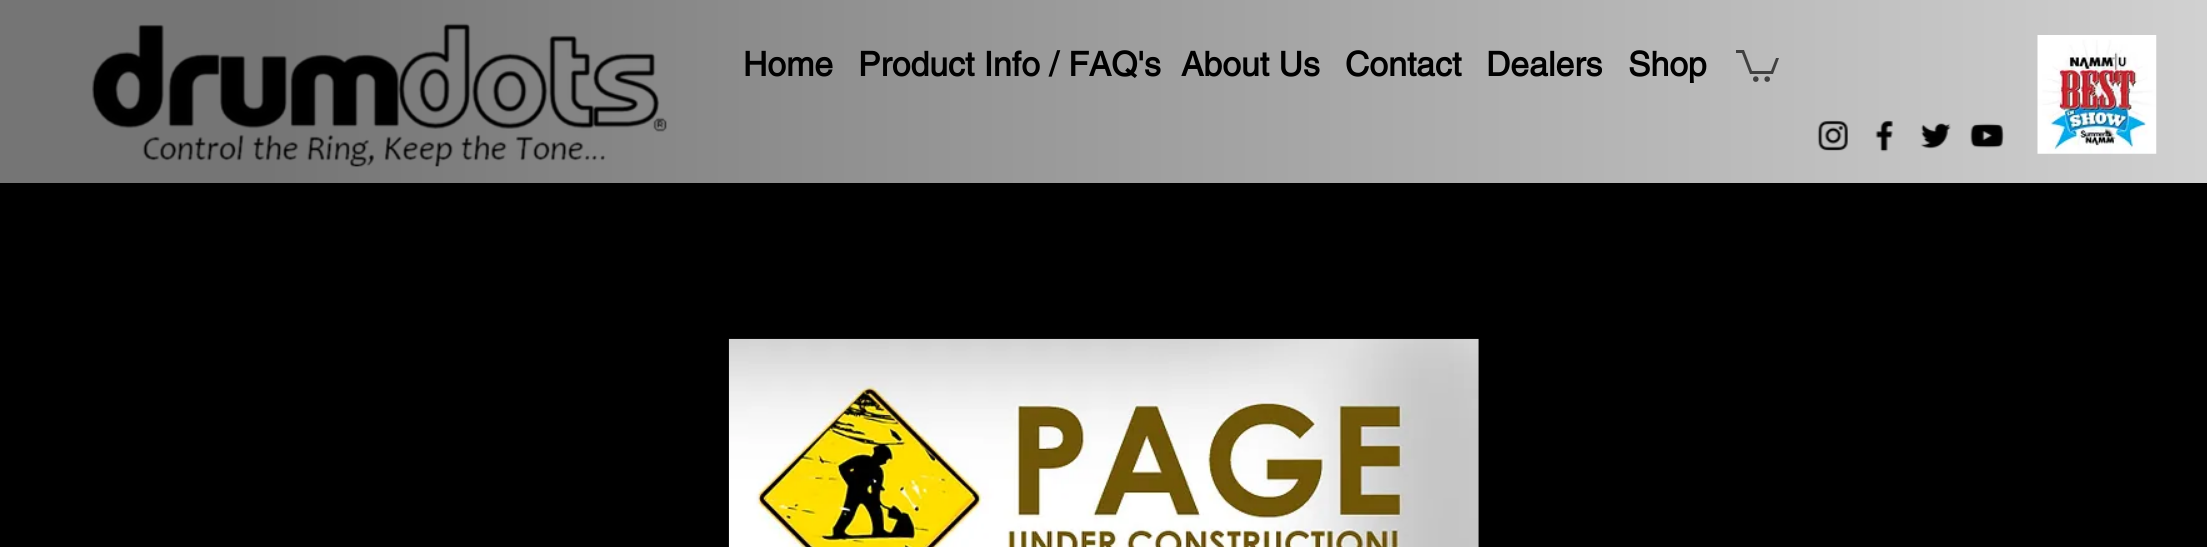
#include <cairo.h>
#include <math.h>
#include <stddef.h>

typedef struct { const char *family; double size; int italic, bold; unsigned color; } style_t;
static cairo_t *ctx;

static void ink(unsigned color) {
    cairo_set_source_rgb(ctx, (color >> 16) / 255.0, (color >> 8 & 255) / 255.0, (color & 255) / 255.0);
}

static void write(double x, double y, const char *s, const style_t *st) {
    cairo_select_font_face(ctx, st->family, st->italic ? CAIRO_FONT_SLANT_ITALIC : CAIRO_FONT_SLANT_NORMAL,
        st->bold ? CAIRO_FONT_WEIGHT_BOLD : CAIRO_FONT_WEIGHT_NORMAL);
    cairo_set_font_size(ctx, st->size);
    ink(st->color);
    cairo_move_to(ctx, x, y);
    cairo_show_text(ctx, s);
}

static void paste(const char *path, double x, double y, double w, double h) {
    cairo_surface_t *image = cairo_image_surface_create_from_png(path);
    cairo_save(ctx);
    cairo_set_source_surface(ctx, image, x, y);
    cairo_rectangle(ctx, x, y, w, h);
    cairo_fill(ctx);
    cairo_restore(ctx);
    cairo_surface_destroy(image);
}

static const style_t s1 = {"helvetica", 33.75, 0, 1, 0x000000};

int main(void) {
    cairo_surface_t *surface = cairo_image_surface_create(CAIRO_FORMAT_RGB24, 2207, 547);
    ctx = cairo_create(surface);
    cairo_font_options_t *options = cairo_font_options_create();
    cairo_font_options_set_hint_metrics(options, CAIRO_HINT_METRICS_OFF);
    cairo_font_options_set_hint_style(options, CAIRO_HINT_STYLE_NONE);
    cairo_set_font_options(ctx, options);
    cairo_set_miter_limit(ctx, 4);
    cairo_pattern_t *gradient;
    ink(0x000000);
    cairo_paint(ctx);
    gradient = cairo_pattern_create_linear(0, 91, 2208, 91);
    cairo_pattern_add_color_stop_rgba(gradient, 0.12, 0.459, 0.459, 0.459, 1);
    cairo_pattern_add_color_stop_rgba(gradient, 1, 0.82, 0.82, 0.82, 1);
    cairo_set_source(ctx, gradient);
    cairo_pattern_destroy(gradient);
    cairo_rectangle(ctx, 0, 0, 2207, 183);
    cairo_fill(ctx);
    paste("pic1.png", 92, 23, 575, 144);
    write(743, 76, "Home", &s1);
    write(858, 76, "Product Info / FAQ's", &s1);
    write(1181, 76, "About Us", &s1);
    write(1345, 76, "Contact", &s1);
    write(1486, 76, "Dealers", &s1);
    write(1628, 76, "Shop", &s1);
    ink(0x404040);
    cairo_new_path(ctx);
    cairo_move_to(ctx, 1779, 58);
    cairo_line_to(ctx, 1773, 74);
    cairo_line_to(ctx, 1750, 74);
    cairo_line_to(ctx, 1742, 53);
    cairo_line_to(ctx, 1736, 53);
    cairo_line_to(ctx, 1736, 50);
    cairo_line_to(ctx, 1744, 50);
    cairo_line_to(ctx, 1752, 71);
    cairo_line_to(ctx, 1771, 71);
    cairo_line_to(ctx, 1776, 58);
    cairo_fill(ctx);
    cairo_arc(ctx, 1767.2, 79.1, 2.8, 0, 2 * M_PI);
    cairo_fill(ctx);
    cairo_arc(ctx, 1755.8, 79.1, 2.8, 0, 2 * M_PI);
    cairo_fill(ctx);
    paste("pic2.png", 2037, 35, 120, 119);
    paste("pic3.png", 1817, 120, 31, 31);
    paste("pic4.png", 1875, 120, 18, 32);
    paste("pic5.png", 1920, 123, 31, 26);
    paste("pic6.png", 1970, 123, 34, 25);
    paste("pic7.png", 728, 338, 751, 209);
    cairo_surface_write_to_png(surface, "screenshot.png");
    cairo_font_options_destroy(options);
    cairo_destroy(ctx);
    cairo_surface_destroy(surface);
    return 0;
}
